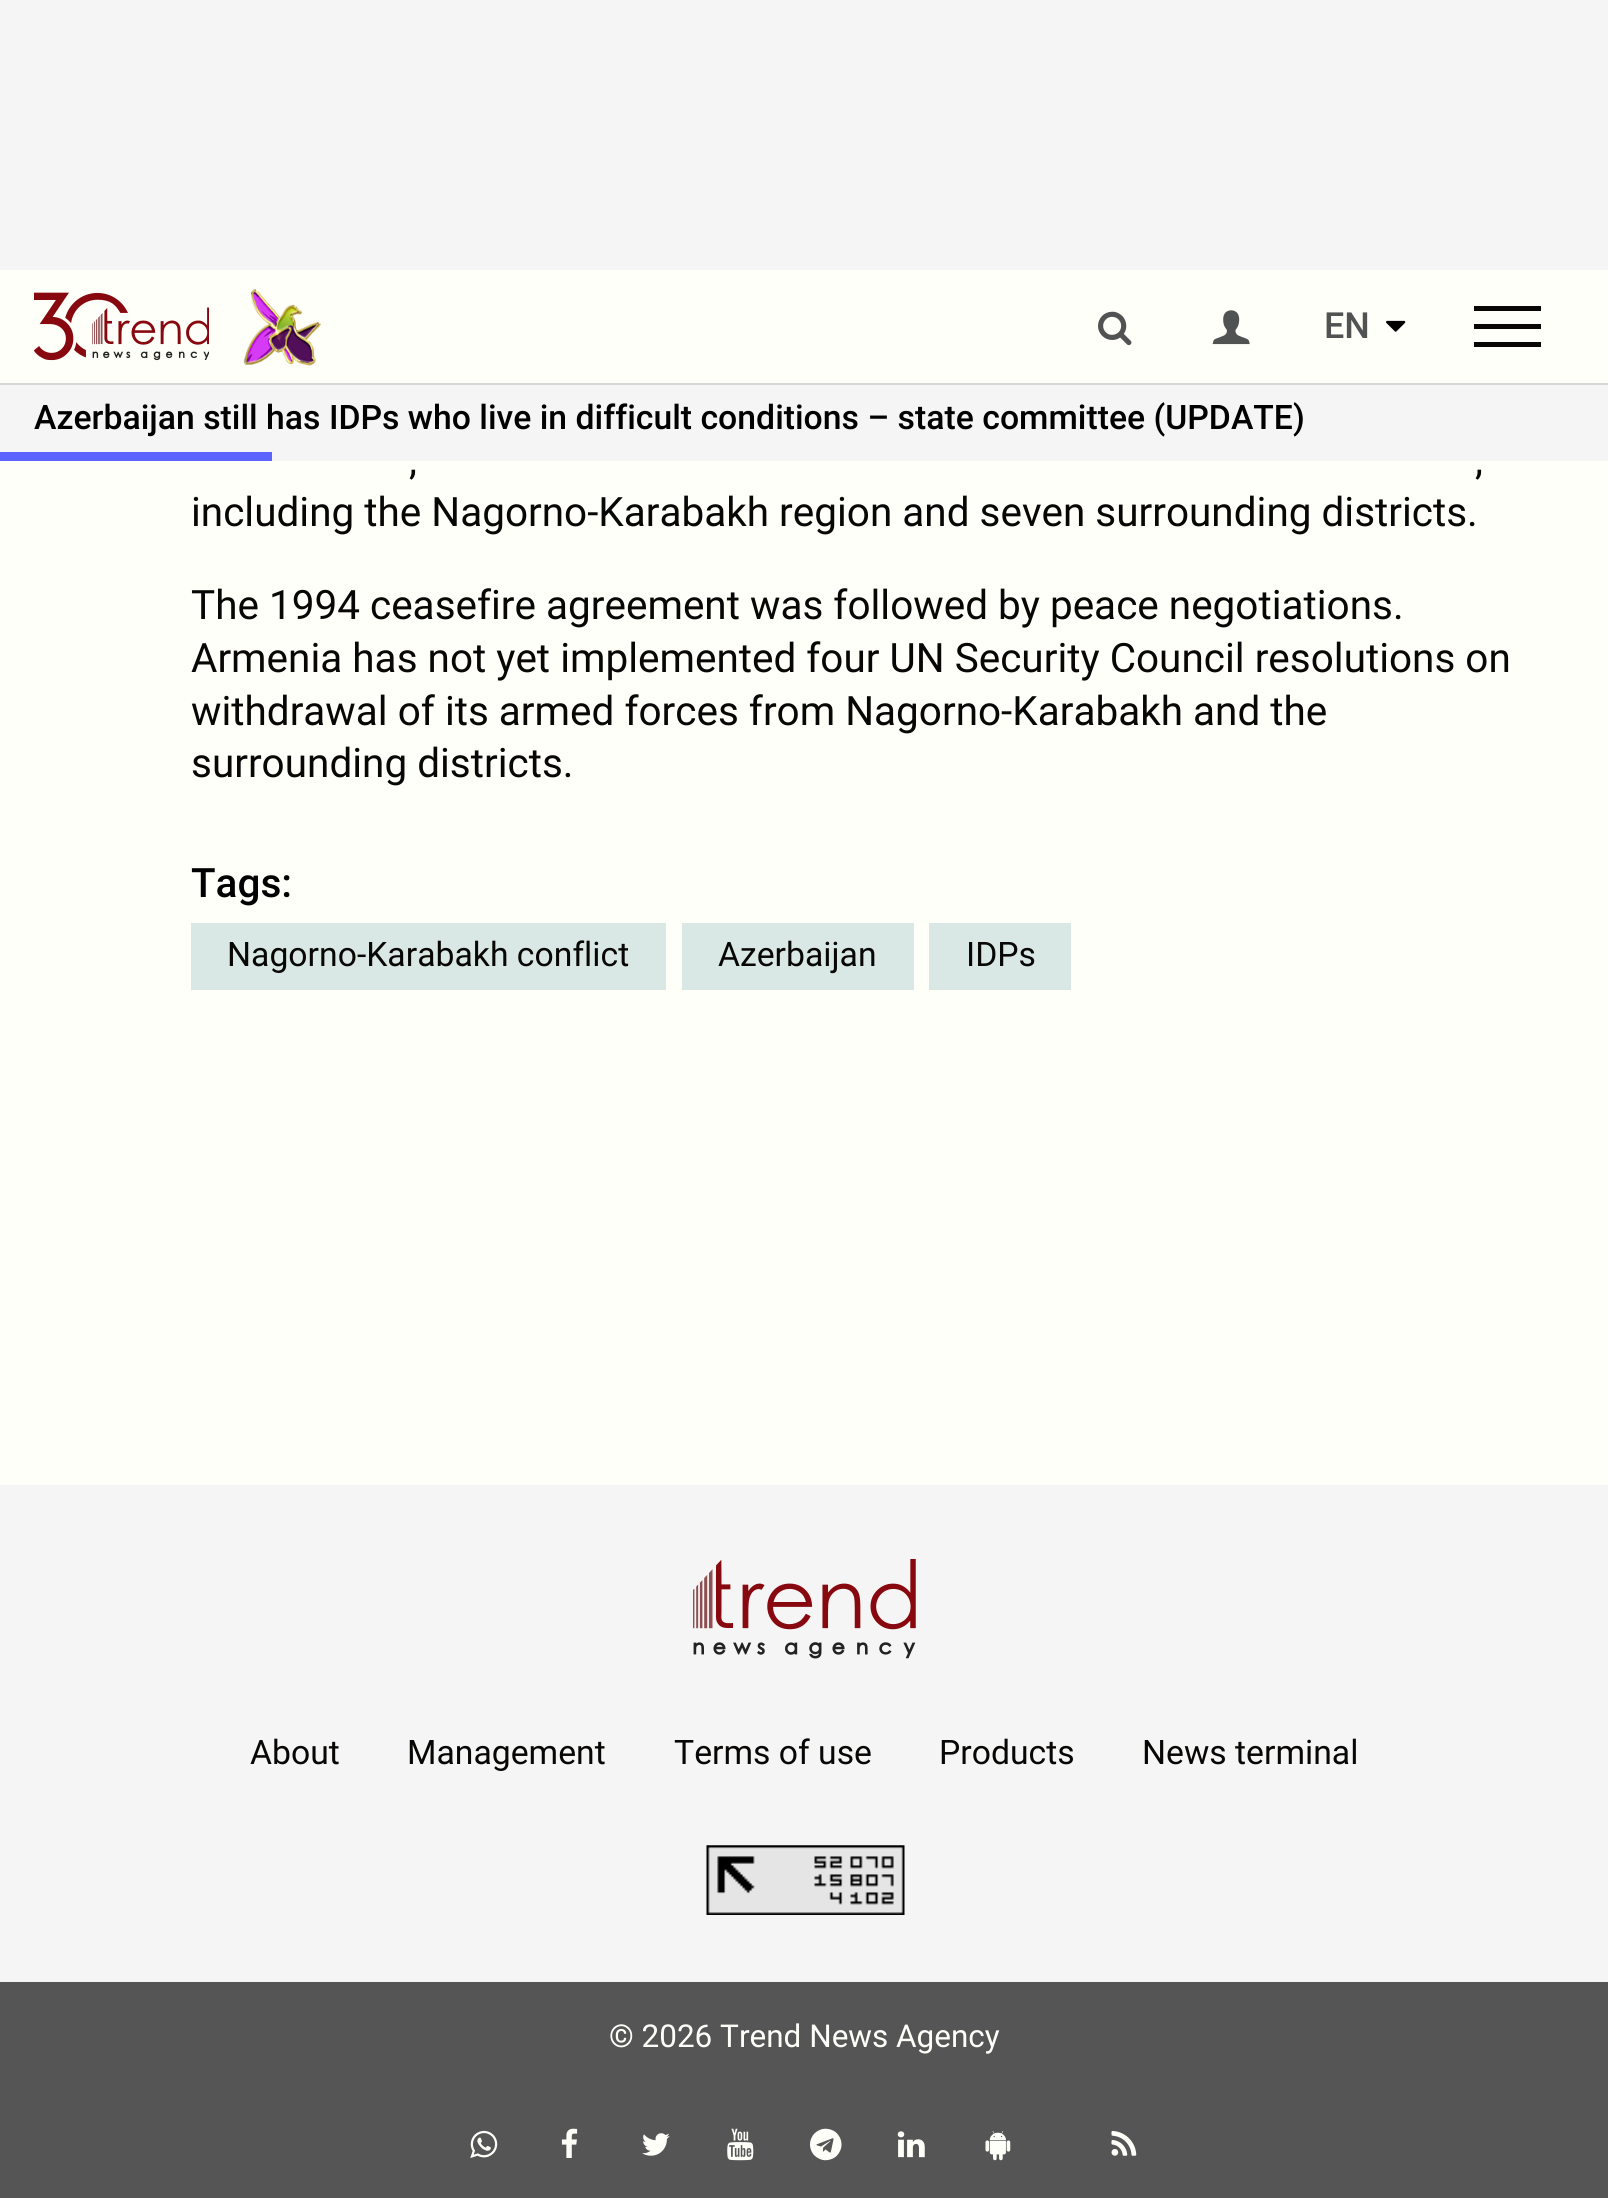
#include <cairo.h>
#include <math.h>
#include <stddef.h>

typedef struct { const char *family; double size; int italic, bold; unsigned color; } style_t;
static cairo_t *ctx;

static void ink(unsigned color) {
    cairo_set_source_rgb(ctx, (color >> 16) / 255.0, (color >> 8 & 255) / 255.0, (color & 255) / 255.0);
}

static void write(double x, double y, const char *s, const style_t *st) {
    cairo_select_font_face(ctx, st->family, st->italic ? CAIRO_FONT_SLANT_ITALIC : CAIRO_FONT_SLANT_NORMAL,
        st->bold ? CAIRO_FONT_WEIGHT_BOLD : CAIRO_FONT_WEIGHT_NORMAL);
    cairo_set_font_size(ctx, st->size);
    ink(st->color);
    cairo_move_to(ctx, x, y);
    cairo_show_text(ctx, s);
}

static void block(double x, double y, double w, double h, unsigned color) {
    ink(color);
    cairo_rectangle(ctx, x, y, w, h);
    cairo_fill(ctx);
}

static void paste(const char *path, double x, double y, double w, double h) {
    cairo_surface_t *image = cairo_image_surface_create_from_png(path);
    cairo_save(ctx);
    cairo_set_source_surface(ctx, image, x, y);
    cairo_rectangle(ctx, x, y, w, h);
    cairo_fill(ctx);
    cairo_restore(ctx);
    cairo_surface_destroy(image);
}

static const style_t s1 = {"Roboto Medium", 36, 0, 0, 0x515252};
static const style_t s2 = {"Roboto Medium", 33.75, 0, 0, 0x000000};
static const style_t s3 = {"Roboto", 40.5, 0, 0, 0x080705};
static const style_t s4 = {"Roboto Medium", 40.5, 0, 0, 0x000000};
static const style_t s5 = {"Roboto", 33.75, 0, 0, 0x080705};
static const style_t s6 = {"Roboto", 31.5, 0, 0, 0xfffffa};

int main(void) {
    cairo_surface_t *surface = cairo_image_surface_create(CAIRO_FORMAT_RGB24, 1608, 2198);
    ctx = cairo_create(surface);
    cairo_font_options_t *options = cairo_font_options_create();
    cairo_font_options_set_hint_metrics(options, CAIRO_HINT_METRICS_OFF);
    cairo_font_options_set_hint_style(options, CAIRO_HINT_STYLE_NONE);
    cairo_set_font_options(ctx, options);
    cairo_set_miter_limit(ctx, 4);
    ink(0xfffffa);
    cairo_paint(ctx);
    block(0, 0, 1608, 270, 0xf5f5f5);
    paste("pic1.png", 34, 292, 175, 69);
    paste("pic2.png", 243, 288, 78, 78);
    paste("pic3.png", 1098, 311, 34, 35);
    paste("pic4.png", 1212, 310, 38, 35);
    write(1324, 338, "EN", &s1);
    paste("pic5.png", 1386, 320, 20, 12);
    block(1474, 306, 67, 5, 0x080705);
    block(1474, 324, 67, 5, 0x080705);
    block(1474, 342, 67, 5, 0x080705);
    block(0, 385, 1608, 76, 0xf5f5f5);
    block(0, 383, 1608, 2, 0xd6d7d7);
    write(34, 429, "Azerbaijan still has IDPs who live in difficult conditions – state committee (UPDATE)", &s2);
    block(0, 452, 272, 9, 0x5c64ff);
    write(409, 474, ",", &s3);
    write(1475, 474, ",", &s3);
    write(191, 526, "including the Nagorno-Karabakh region and seven surrounding districts.", &s3);
    write(191, 619, "The 1994 ceasefire agreement was followed by peace negotiations.", &s3);
    write(191, 672, "Armenia has not yet implemented four UN Security Council resolutions on", &s3);
    write(191, 725, "withdrawal of its armed forces from Nagorno-Karabakh and the", &s3);
    write(191, 777, "surrounding districts.", &s3);
    write(191, 897, "Tags:", &s4);
    block(191, 923, 475, 67, 0xd9e8e4);
    write(227, 966, "Nagorno-Karabakh conflict", &s5);
    block(682, 923, 232, 67, 0xd9e8e4);
    write(718, 966, "Azerbaijan", &s5);
    block(929, 923, 142, 67, 0xd9e8e4);
    write(966, 966, "IDPs", &s5);
    block(0, 1485, 1608, 497, 0xf5f5f5);
    paste("pic6.png", 693, 1559, 223, 100);
    write(250, 1764, "About", &s5);
    write(407, 1764, "Management", &s5);
    write(674, 1764, "Terms of use", &s5);
    write(939, 1764, "Products", &s5);
    write(1142, 1764, "News terminal", &s5);
    paste("pic7.png", 706, 1845, 199, 70);
    block(0, 1982, 1608, 216, 0x555555);
    write(609, 2047, "© 2026 Trend News Agency", &s6);
    paste("pic8.png", 470, 2130, 28, 28);
    paste("pic9.png", 561, 2128, 17, 30);
    paste("pic10.png", 642, 2133, 28, 23);
    paste("pic11.png", 727, 2128, 27, 33);
    paste("pic12.png", 810, 2128, 32, 33);
    paste("pic13.png", 897, 2131, 28, 27);
    paste("pic14.png", 985, 2131, 26, 30);
    paste("pic15.png", 1111, 2131, 26, 25);
    cairo_surface_write_to_png(surface, "screenshot.png");
    cairo_font_options_destroy(options);
    cairo_destroy(ctx);
    cairo_surface_destroy(surface);
    return 0;
}
